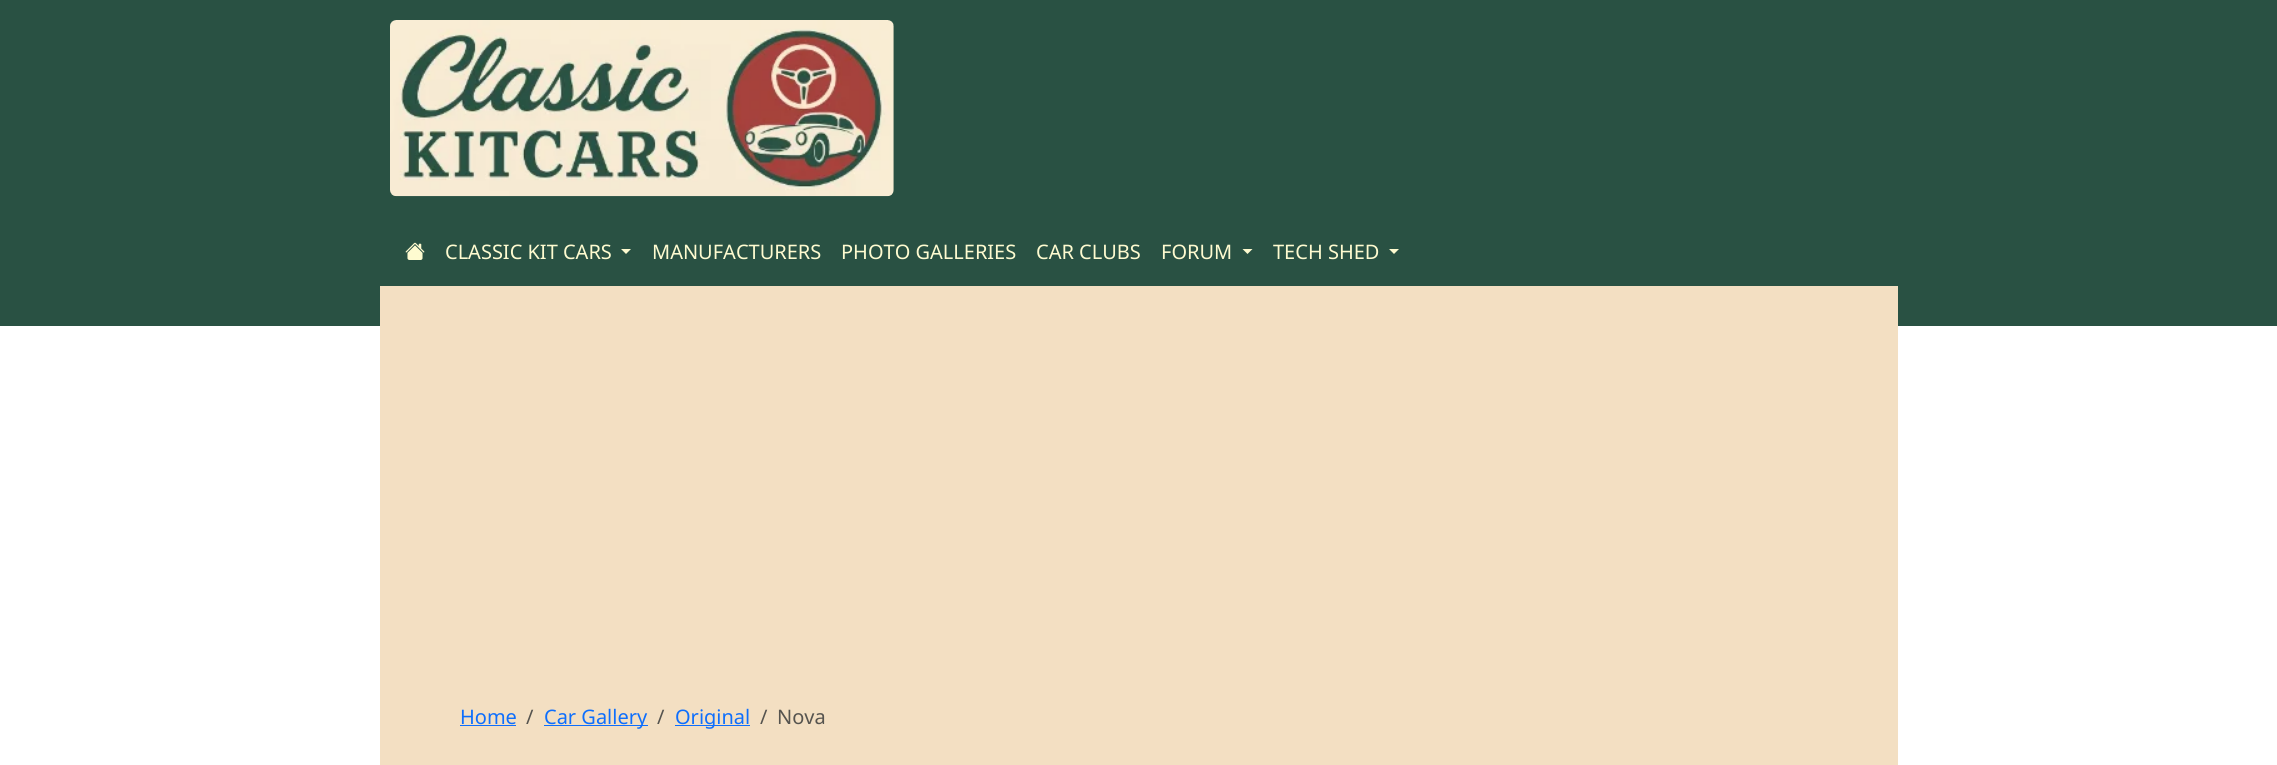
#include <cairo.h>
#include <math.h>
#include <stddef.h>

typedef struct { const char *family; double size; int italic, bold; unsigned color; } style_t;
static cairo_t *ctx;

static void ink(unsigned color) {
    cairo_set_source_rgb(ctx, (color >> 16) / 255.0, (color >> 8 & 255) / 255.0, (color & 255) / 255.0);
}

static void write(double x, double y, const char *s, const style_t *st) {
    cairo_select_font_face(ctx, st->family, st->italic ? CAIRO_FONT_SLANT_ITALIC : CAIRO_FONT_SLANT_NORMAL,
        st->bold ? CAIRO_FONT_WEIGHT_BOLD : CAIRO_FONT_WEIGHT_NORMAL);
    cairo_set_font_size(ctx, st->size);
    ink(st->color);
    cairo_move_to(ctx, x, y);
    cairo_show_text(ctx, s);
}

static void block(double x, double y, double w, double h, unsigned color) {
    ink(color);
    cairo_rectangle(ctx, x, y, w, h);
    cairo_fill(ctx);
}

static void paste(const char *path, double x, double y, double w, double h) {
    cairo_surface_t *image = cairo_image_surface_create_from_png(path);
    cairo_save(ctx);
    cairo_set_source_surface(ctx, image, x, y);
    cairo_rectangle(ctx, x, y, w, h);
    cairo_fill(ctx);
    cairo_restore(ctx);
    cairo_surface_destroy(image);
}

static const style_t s1 = {"Noto Sans", 20, 0, 0, 0xfefbd0};
static const style_t s2 = {"Noto Sans", 20, 0, 0, 0x0d6efd};
static const style_t s3 = {"Noto Sans", 20, 0, 0, 0x56544f};

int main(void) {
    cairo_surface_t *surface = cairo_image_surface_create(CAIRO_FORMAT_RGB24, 2277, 765);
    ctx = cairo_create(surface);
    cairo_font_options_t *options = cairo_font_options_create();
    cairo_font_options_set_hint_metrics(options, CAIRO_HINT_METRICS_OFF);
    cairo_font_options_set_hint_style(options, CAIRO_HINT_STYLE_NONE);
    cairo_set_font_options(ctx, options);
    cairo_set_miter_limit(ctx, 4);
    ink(0x295143);
    cairo_paint(ctx);
    paste("pic1.png", 390, 20, 504, 177);
    paste("pic2.png", 405, 242, 20, 18);
    write(445, 259, "CLASSIC KIT CARS", &s1);
    cairo_new_path(ctx);
    cairo_move_to(ctx, 621, 249);
    cairo_line_to(ctx, 631, 249);
    cairo_line_to(ctx, 626, 254);
    cairo_close_path(ctx);
    cairo_fill(ctx);
    write(652, 259, "MANUFACTURERS", &s1);
    write(841, 259, "PHOTO GALLERIES", &s1);
    write(1036, 259, "CAR CLUBS", &s1);
    write(1161, 259, "FORUM", &s1);
    cairo_new_path(ctx);
    cairo_move_to(ctx, 1242.5, 249);
    cairo_line_to(ctx, 1252.5, 249);
    cairo_line_to(ctx, 1247.5, 254);
    cairo_close_path(ctx);
    cairo_fill(ctx);
    write(1273, 259, "TECH SHED", &s1);
    cairo_new_path(ctx);
    cairo_move_to(ctx, 1389, 249);
    cairo_line_to(ctx, 1399, 249);
    cairo_line_to(ctx, 1394, 254);
    cairo_close_path(ctx);
    cairo_fill(ctx);
    block(0, 326, 380, 439, 0xffffff);
    block(380, 286, 1518, 479, 0xf3dfc2);
    write(460, 724, "Home", &s2);
    block(460, 725, 56, 1, 0x0d6efd);
    write(526, 724, "/", &s3);
    block(544, 725, 104, 1, 0x0d6efd);
    write(544, 724, "Car Gallery", &s2);
    write(657, 724, "/", &s3);
    block(675, 725, 75, 1, 0x0d6efd);
    write(675, 724, "Original", &s2);
    write(760, 724, "/", &s3);
    write(777, 724, "Nova", &s3);
    block(1898, 326, 379, 439, 0xffffff);
    cairo_surface_write_to_png(surface, "screenshot.png");
    cairo_font_options_destroy(options);
    cairo_destroy(ctx);
    cairo_surface_destroy(surface);
    return 0;
}
